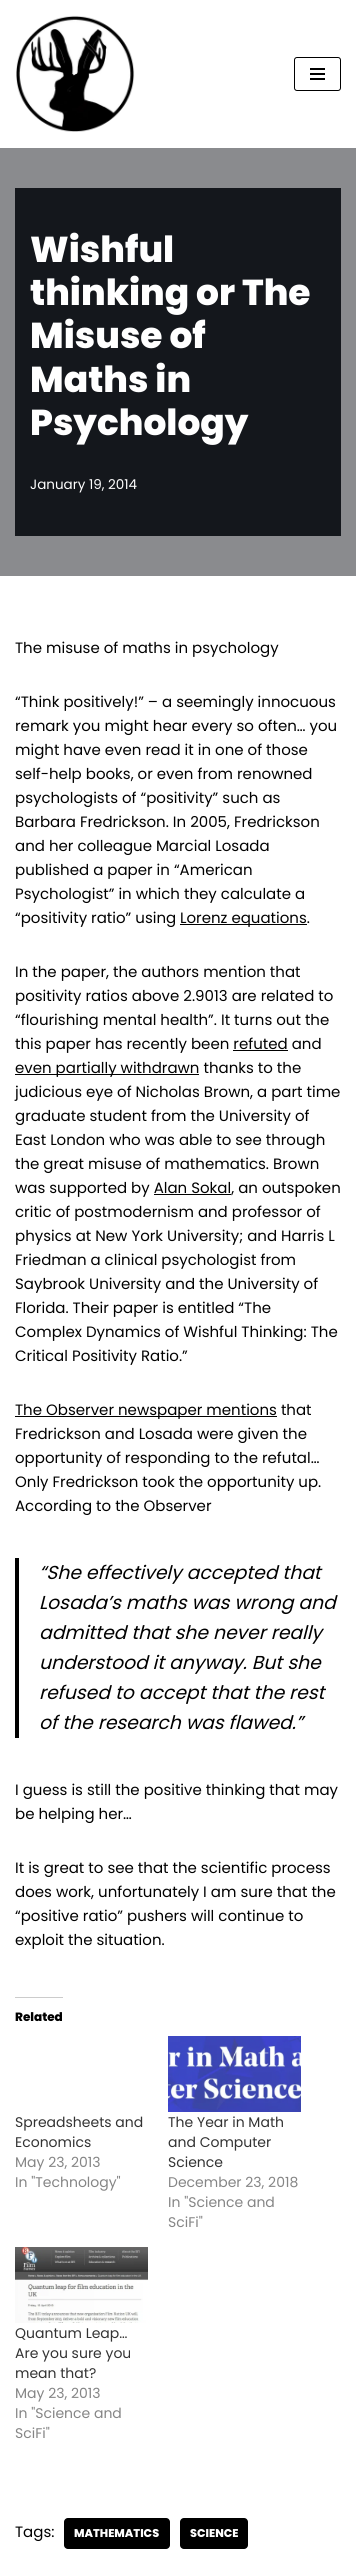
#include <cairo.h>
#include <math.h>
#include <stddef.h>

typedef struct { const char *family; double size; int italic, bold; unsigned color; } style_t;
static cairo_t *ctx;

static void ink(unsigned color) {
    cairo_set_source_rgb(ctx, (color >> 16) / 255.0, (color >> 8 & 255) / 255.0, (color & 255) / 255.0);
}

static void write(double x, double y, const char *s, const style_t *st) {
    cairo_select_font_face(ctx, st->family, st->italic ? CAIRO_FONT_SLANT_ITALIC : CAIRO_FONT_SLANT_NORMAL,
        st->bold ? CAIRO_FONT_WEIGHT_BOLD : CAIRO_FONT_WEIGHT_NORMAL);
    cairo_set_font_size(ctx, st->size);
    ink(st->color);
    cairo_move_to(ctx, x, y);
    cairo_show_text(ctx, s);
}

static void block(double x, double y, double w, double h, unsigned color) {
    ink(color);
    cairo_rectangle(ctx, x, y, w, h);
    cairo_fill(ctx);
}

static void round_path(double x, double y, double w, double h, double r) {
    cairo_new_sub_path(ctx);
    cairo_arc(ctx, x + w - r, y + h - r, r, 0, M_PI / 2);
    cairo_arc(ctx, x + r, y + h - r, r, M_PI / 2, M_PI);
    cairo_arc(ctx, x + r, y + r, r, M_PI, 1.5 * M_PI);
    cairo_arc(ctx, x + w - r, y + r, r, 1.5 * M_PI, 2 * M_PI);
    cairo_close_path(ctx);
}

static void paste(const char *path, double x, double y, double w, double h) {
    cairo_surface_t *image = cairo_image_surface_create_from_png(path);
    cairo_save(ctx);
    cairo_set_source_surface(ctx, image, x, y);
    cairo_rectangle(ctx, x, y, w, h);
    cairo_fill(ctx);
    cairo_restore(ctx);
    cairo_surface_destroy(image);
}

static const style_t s1 = {"Poppins ExtraBold", 36, 0, 0, 0xffffff};
static const style_t s2 = {"Poppins", 13.5, 0, 0, 0xffffff};
static const style_t s3 = {"Poppins", 15, 0, 0, 0x000000};
static const style_t s4 = {"Poppins", 18.75, 1, 0, 0x000000};
static const style_t s5 = {"Poppins ExtraBold", 12, 0, 0, 0x000000};
static const style_t s6 = {"Poppins", 14, 0, 0, 0x333333};
static const style_t s7 = {"Poppins", 14, 0, 0, 0x858585};
static const style_t s8 = {"Poppins ExtraBold", 11.25, 0, 0, 0xffffff};

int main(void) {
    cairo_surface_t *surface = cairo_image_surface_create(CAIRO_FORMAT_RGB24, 356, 2565);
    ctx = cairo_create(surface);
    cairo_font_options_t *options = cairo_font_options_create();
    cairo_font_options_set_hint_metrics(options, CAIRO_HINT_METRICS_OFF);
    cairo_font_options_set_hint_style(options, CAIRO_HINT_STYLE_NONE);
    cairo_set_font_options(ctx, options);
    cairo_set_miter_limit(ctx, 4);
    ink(0xffffff);
    cairo_paint(ctx);
    block(0, 148, 356, 428, 0x8a8b8e);
    paste("pic1.png", 16, 15, 119, 117);
    round_path(294.5, 57.5, 46, 33, 2.5);
    ink(0x000000);
    cairo_set_line_width(ctx, 1);
    cairo_stroke(ctx);
    block(310, 68, 15, 2, 0x000000);
    block(310, 73, 15, 2, 0x000000);
    block(310, 78, 15, 2, 0x000000);
    block(15, 188, 326, 348, 0x14171c);
    write(30, 262, "Wishful", &s1);
    write(30, 305, "thinking or The", &s1);
    write(30, 348, "Misuse of", &s1);
    write(30, 392, "Maths in", &s1);
    write(30, 435, "Psychology", &s1);
    write(30, 489, "January 19, 2014", &s2);
    write(15, 653, "The misuse of maths in psychology", &s3);
    write(15, 707, "“Think positively!” – a seemingly innocuous", &s3);
    write(15, 731, "remark you might hear every so often… you", &s3);
    write(15, 755, "might have even read it in one of those", &s3);
    write(15, 779, "self-help books, or even from renowned", &s3);
    write(15, 803, "psychologists of “positivity” such as", &s3);
    write(15, 827, "Barbara Fredrickson. In 2005, Fredrickson", &s3);
    write(15, 851, "and her colleague Marcial Losada", &s3);
    write(15, 875, "published a paper in “American", &s3);
    write(15, 899, "Psychologist” in which they calculate a", &s3);
    write(15, 923, "“positivity ratio” using", &s3);
    block(180, 924, 127, 1, 0x000000);
    write(180, 923, "Lorenz equations.", &s3);
    write(15, 977, "In the paper, the authors mention that", &s3);
    write(15, 1001, "positivity ratios above 2.9013 are related to", &s3);
    write(15, 1025, "“flourishing mental health”. It turns out the", &s3);
    write(15, 1049, "this paper has recently been refuted and", &s3);
    block(233, 1050, 55, 1, 0x000000);
    block(15, 1074, 184, 1, 0x000000);
    write(15, 1073, "even partially withdrawn thanks to the", &s3);
    write(15, 1097, "judicious eye of Nicholas Brown, a part time", &s3);
    write(15, 1121, "graduate student from the University of", &s3);
    write(15, 1145, "East London who was able to see through", &s3);
    write(15, 1169, "the great misuse of mathematics. Brown", &s3);
    write(15, 1193, "was supported by Alan Sokal, an outspoken", &s3);
    block(154, 1194, 77, 1, 0x000000);
    write(15, 1217, "critic of postmodernism and professor of", &s3);
    write(15, 1241, "physics at New York University; and Harris L", &s3);
    write(15, 1265, "Friedman a clinical psychologist from", &s3);
    write(15, 1289, "Saybrook University and the University of", &s3);
    write(15, 1313, "Florida. Their paper is entitled “The", &s3);
    write(15, 1337, "Complex Dynamics of Wishful Thinking: The", &s3);
    write(15, 1361, "Critical Positivity Ratio.”", &s3);
    block(15, 1416, 262, 1, 0x000000);
    write(15, 1415, "The Observer newspaper mentions that", &s3);
    write(15, 1439, "Fredrickson and Losada were given the", &s3);
    write(15, 1463, "opportunity of responding to the refutal…", &s3);
    write(15, 1487, "Only Fredrickson took the opportunity up.", &s3);
    write(15, 1511, "According to the Observer", &s3);
    block(15, 1558, 4, 180, 0x000000);
    write(39, 1579, "“She effectively accepted that", &s4);
    write(39, 1609, "Losada’s maths was wrong and", &s4);
    write(39, 1639, "admitted that she never really", &s4);
    write(39, 1669, "understood it anyway. But she", &s4);
    write(39, 1699, "refused to accept that the rest", &s4);
    write(39, 1729, "of the research was flawed.”", &s4);
    write(15, 1795, "I guess is still the positive thinking that may", &s3);
    write(15, 1819, "be helping her…", &s3);
    write(15, 1873, "It is great to see that the scientific process", &s3);
    write(15, 1897, "does work, unfortunately I am sure that the", &s3);
    write(15, 1921, "“positive ratio” pushers will continue to", &s3);
    write(15, 1945, "exploit the situation.", &s3);
    block(15, 1997, 48, 1, 0xcccccc);
    write(15, 2021, "Related", &s5);
    write(15, 2127, "Spreadsheets and", &s6);
    write(15, 2147, "Economics", &s6);
    write(15, 2167, "May 23, 2013", &s7);
    write(15, 2187, "In \"Technology\"", &s7);
    paste("pic2.png", 168, 2036, 133, 76);
    write(168, 2127, "The Year in Math", &s6);
    write(168, 2147, "and Computer", &s6);
    write(168, 2167, "Science", &s6);
    write(168, 2187, "December 23, 2018", &s7);
    write(168, 2207, "In \"Science and", &s7);
    write(168, 2227, "SciFi\"", &s7);
    paste("pic3.png", 15, 2247, 133, 76);
    write(15, 2338, "Quantum Leap…", &s6);
    write(15, 2358, "Are you sure you", &s6);
    write(15, 2378, "mean that?", &s6);
    write(15, 2398, "May 23, 2013", &s7);
    write(15, 2418, "In \"Science and", &s7);
    write(15, 2438, "SciFi\"", &s7);
    write(15, 2537, "Tags:", &s3);
    round_path(64, 2518, 106, 31, 4);
    cairo_fill(ctx);
    write(74, 2537, "MATHEMATICS", &s8);
    ink(0x000000);
    round_path(180, 2518, 68, 31, 4);
    cairo_fill(ctx);
    write(190, 2537, "SCIENCE", &s8);
    cairo_surface_write_to_png(surface, "screenshot.png");
    cairo_font_options_destroy(options);
    cairo_destroy(ctx);
    cairo_surface_destroy(surface);
    return 0;
}
